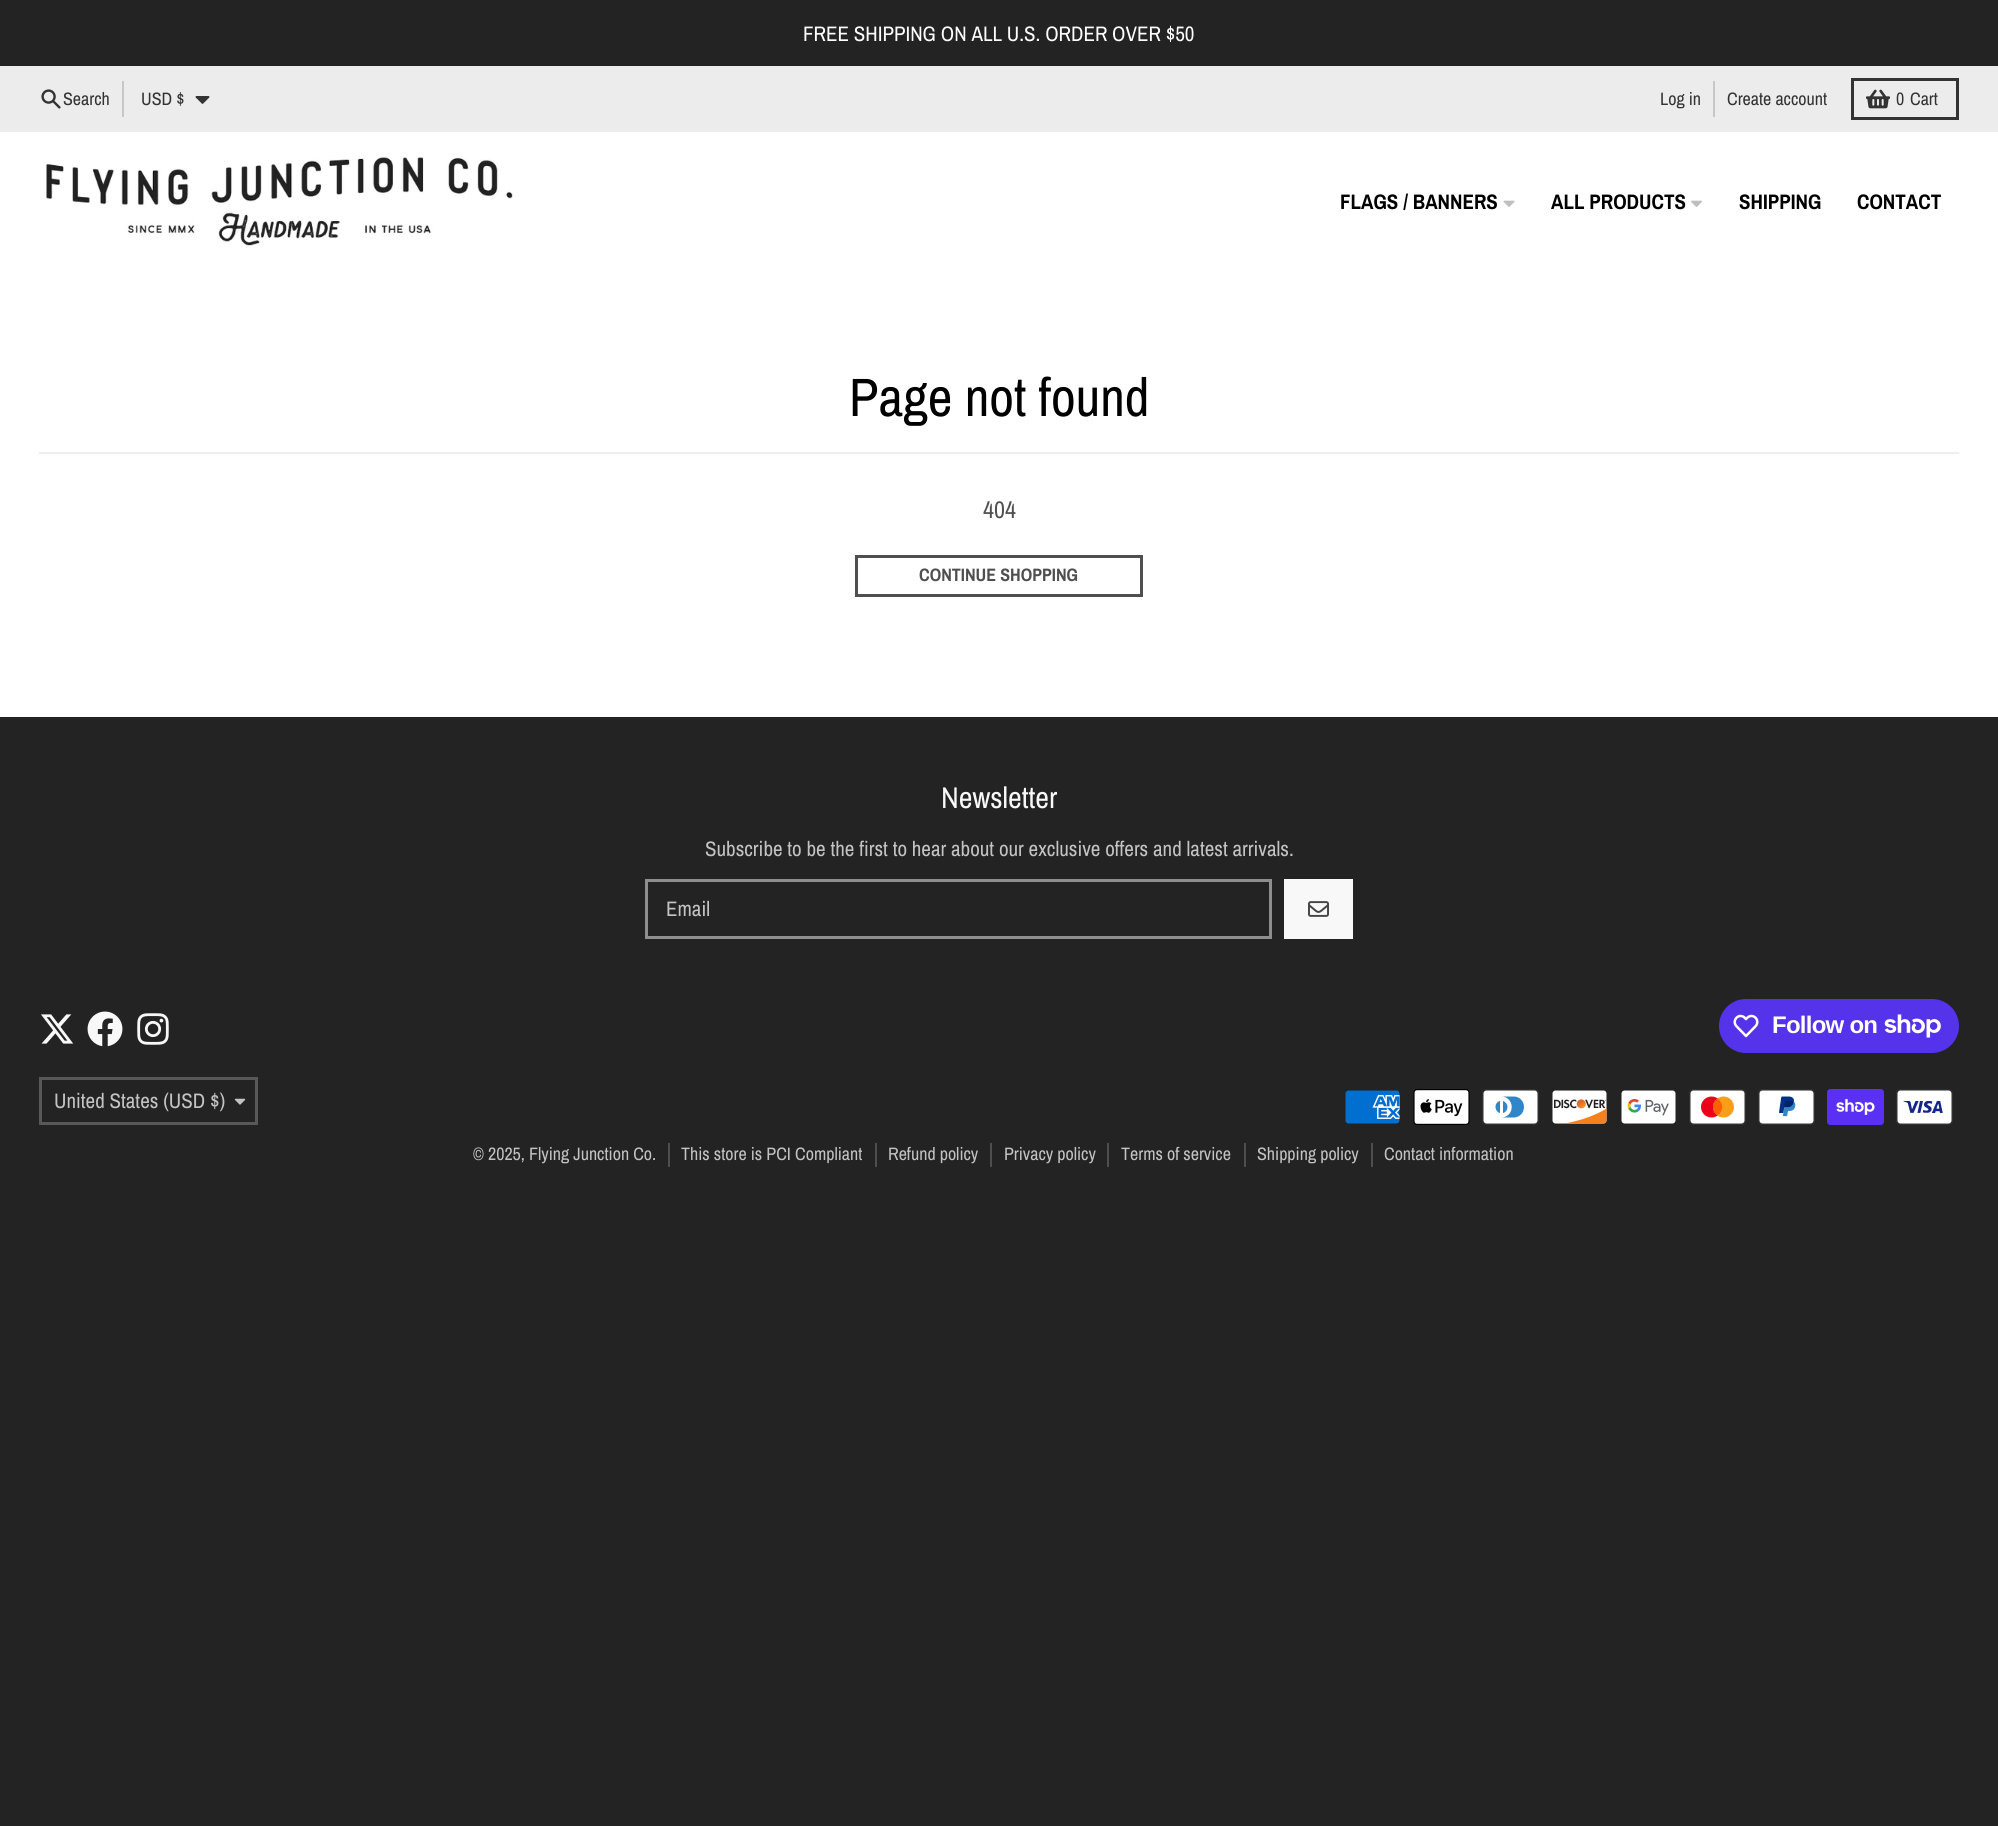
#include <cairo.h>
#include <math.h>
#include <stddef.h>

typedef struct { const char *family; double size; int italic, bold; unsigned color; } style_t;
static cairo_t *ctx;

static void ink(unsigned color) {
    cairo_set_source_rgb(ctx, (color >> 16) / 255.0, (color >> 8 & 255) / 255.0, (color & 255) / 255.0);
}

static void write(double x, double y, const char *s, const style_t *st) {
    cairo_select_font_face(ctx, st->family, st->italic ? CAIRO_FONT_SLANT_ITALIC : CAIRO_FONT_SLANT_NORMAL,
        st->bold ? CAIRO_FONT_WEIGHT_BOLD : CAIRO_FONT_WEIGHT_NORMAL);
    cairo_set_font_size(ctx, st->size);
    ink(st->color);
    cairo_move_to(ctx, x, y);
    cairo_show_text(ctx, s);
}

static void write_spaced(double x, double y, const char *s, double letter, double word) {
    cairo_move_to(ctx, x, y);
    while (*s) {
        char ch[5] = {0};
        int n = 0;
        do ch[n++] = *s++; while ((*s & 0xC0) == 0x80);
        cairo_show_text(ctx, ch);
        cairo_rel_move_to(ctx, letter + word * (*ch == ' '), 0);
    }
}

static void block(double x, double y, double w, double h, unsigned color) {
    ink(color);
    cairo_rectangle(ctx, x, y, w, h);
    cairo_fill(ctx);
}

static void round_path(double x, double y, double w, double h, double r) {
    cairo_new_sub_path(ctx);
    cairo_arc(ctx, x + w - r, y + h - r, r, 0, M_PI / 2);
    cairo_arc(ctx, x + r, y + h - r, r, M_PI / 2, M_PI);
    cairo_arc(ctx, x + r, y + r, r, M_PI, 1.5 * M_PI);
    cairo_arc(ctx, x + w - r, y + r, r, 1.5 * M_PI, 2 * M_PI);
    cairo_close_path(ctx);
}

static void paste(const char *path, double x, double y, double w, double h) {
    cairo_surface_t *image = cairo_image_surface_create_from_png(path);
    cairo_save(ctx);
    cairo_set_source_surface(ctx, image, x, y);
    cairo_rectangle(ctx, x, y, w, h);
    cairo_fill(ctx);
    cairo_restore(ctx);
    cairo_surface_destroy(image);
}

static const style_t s1 = {"Archivo Narrow", 21, 0, 0, 0xffffff};
static const style_t s2 = {"Archivo Narrow", 18, 0, 0, 0x333333};
static const style_t s3 = {"Archivo Narrow", 21, 0, 1, 0x000000};
static const style_t s4 = {"Archivo Narrow", 54, 0, 0, 0x000000};
static const style_t s5 = {"Archivo Narrow", 24, 0, 0, 0x4f4f4f};
static const style_t s6 = {"Archivo Narrow", 18, 0, 1, 0x4f4f4f};
static const style_t s7 = {"Archivo Narrow", 30, 0, 0, 0xf8f8f8};
static const style_t s8 = {"Archivo Narrow", 21, 0, 0, 0xc3c3c3};
static const style_t s9 = {"Archivo Narrow", 18, 0, 0, 0xc3c3c3};

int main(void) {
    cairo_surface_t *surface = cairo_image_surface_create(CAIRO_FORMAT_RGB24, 1998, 1826);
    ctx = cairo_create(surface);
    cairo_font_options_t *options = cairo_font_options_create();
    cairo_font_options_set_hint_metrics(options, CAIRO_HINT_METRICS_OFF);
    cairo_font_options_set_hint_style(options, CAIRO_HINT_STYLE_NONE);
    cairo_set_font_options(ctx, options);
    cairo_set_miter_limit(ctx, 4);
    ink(0x232323);
    cairo_paint(ctx);
    write(803, 41, "FREE SHIPPING ON ALL U.S. ORDER OVER $50", &s1);
    block(0, 66, 1998, 66, 0xececec);
    paste("pic1.png", 41, 89, 20, 20);
    write(63, 105, "Search", &s2);
    block(122, 81, 2, 36, 0xc7c7c7);
    write(141, 105, "USD $", &s2);
    paste("pic2.png", 195, 96, 15, 8);
    write(1660, 105, "Log in", &s2);
    block(1713, 81, 2, 36, 0xc7c7c7);
    write(1727, 105, "Create account", &s2);
    cairo_rectangle(ctx, 1852.5, 79.5, 105, 39);
    cairo_set_line_width(ctx, 3);
    cairo_stroke(ctx);
    paste("pic3.png", 1866, 89, 24, 20);
    write(1896, 105, "0", &s2);
    write(1910, 105, "Cart", &s2);
    block(0, 132, 1998, 585, 0xffffff);
    paste("pic4.png", 46, 157, 467, 89);
    write(1340, 209, "FLAGS / BANNERS", &s3);
    paste("pic5.png", 1503, 200, 12, 7);
    write(1551, 209, "ALL PRODUCTS", &s3);
    paste("pic6.png", 1691, 200, 11, 7);
    write(1739, 209, "SHIPPING", &s3);
    write(1857, 209, "CONTACT", &s3);
    block(39, 452, 1920, 2, 0xededed);
    write(849, 416, "Page not found", &s4);
    write(983, 518, "404", &s5);
    cairo_rectangle(ctx, 856.5, 556.5, 285, 39);
    cairo_stroke(ctx);
    write(919, 581, "CONTINUE SHOPPING", &s6);
    write(941, 808, "Newsletter", &s7);
    write(705, 856, "Subscribe to be the first to hear about our exclusive offers and latest arrivals.", &s8);
    cairo_rectangle(ctx, 646.5, 880.5, 624, 57);
    ink(0x8e8e8e);
    cairo_stroke(ctx);
    write(666, 916, "Email", &s8);
    block(1284, 879, 69, 60, 0xf8f8f8);
    paste("pic7.png", 1308, 901, 21, 16);
    paste("pic8.png", 41, 1014, 33, 30);
    paste("pic9.png", 87, 1011, 36, 36);
    paste("pic10.png", 137, 1013, 32, 32);
    ink(0x5433eb);
    round_path(1719, 999, 240, 54, 27);
    cairo_fill(ctx);
    paste("pic11.png", 1733, 1014, 26, 24);
    cairo_select_font_face(ctx, "Liberation Sans", CAIRO_FONT_SLANT_NORMAL, CAIRO_FONT_WEIGHT_BOLD);
    cairo_set_font_size(ctx, 24);
    ink(0xffffff);
    write_spaced(1772, 1033, "Follow on", -0.75, 0);
    paste("pic12.png", 1884, 1014, 57, 24);
    cairo_rectangle(ctx, 40.5, 1078.5, 216, 45);
    ink(0x585858);
    cairo_stroke(ctx);
    write(54, 1108, "United States (USD $)", &s8);
    paste("pic13.png", 234, 1098, 12, 7);
    paste("pic14.png", 1345, 1090, 55, 34);
    paste("pic15.png", 1413, 1089, 57, 36);
    paste("pic16.png", 1482, 1089, 57, 36);
    paste("pic17.png", 1552, 1090, 55, 34);
    paste("pic18.png", 1621, 1090, 55, 34);
    paste("pic19.png", 1689, 1089, 57, 36);
    paste("pic20.png", 1758, 1089, 57, 36);
    paste("pic21.png", 1827, 1089, 57, 36);
    paste("pic22.png", 1896, 1089, 57, 36);
    write(473, 1160, "© 2025, Flying Junction Co.", &s9);
    block(668, 1143, 2, 24, 0x4e4e4e);
    write(681, 1160, "This store is PCI Compliant", &s9);
    block(875, 1143, 2, 24, 0x4e4e4e);
    write(888, 1160, "Refund policy", &s9);
    block(990, 1143, 2, 24, 0x4e4e4e);
    write(1004, 1160, "Privacy policy", &s9);
    block(1107, 1143, 2, 24, 0x4e4e4e);
    write(1121, 1160, "Terms of service", &s9);
    block(1244, 1143, 2, 24, 0x4e4e4e);
    write(1257, 1160, "Shipping policy", &s9);
    block(1371, 1143, 2, 24, 0x4e4e4e);
    write(1384, 1160, "Contact information", &s9);
    cairo_surface_write_to_png(surface, "screenshot.png");
    cairo_font_options_destroy(options);
    cairo_destroy(ctx);
    cairo_surface_destroy(surface);
    return 0;
}
